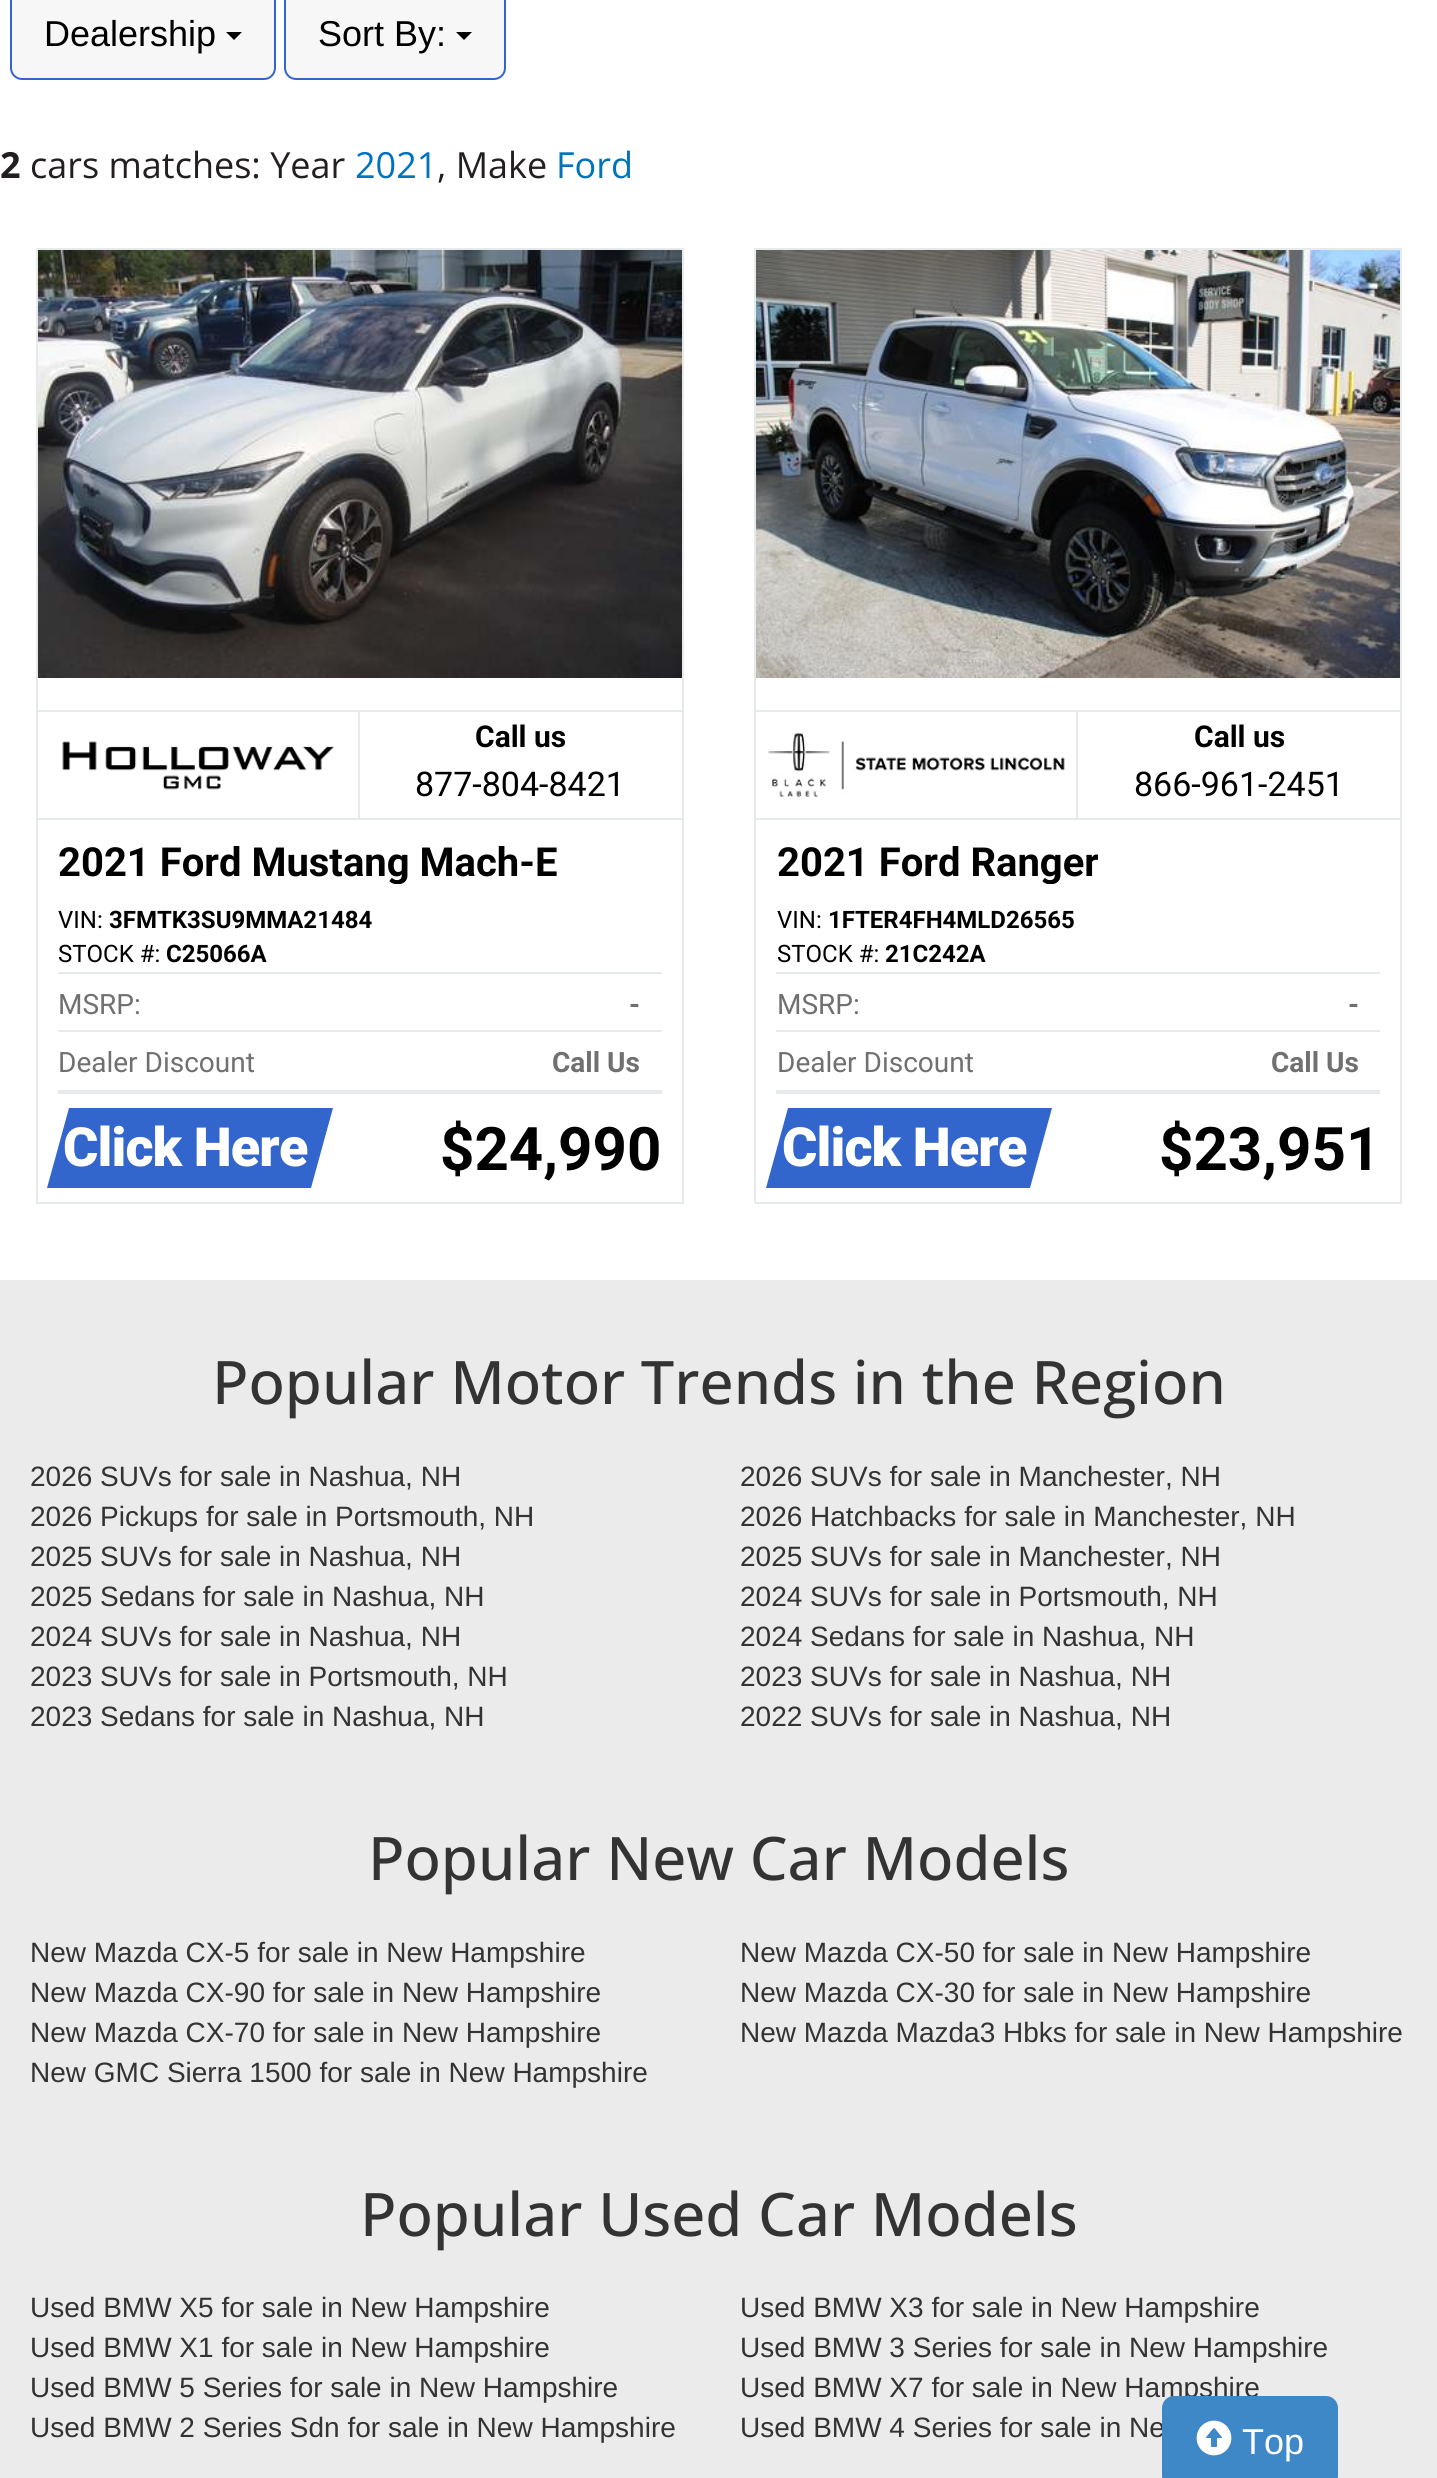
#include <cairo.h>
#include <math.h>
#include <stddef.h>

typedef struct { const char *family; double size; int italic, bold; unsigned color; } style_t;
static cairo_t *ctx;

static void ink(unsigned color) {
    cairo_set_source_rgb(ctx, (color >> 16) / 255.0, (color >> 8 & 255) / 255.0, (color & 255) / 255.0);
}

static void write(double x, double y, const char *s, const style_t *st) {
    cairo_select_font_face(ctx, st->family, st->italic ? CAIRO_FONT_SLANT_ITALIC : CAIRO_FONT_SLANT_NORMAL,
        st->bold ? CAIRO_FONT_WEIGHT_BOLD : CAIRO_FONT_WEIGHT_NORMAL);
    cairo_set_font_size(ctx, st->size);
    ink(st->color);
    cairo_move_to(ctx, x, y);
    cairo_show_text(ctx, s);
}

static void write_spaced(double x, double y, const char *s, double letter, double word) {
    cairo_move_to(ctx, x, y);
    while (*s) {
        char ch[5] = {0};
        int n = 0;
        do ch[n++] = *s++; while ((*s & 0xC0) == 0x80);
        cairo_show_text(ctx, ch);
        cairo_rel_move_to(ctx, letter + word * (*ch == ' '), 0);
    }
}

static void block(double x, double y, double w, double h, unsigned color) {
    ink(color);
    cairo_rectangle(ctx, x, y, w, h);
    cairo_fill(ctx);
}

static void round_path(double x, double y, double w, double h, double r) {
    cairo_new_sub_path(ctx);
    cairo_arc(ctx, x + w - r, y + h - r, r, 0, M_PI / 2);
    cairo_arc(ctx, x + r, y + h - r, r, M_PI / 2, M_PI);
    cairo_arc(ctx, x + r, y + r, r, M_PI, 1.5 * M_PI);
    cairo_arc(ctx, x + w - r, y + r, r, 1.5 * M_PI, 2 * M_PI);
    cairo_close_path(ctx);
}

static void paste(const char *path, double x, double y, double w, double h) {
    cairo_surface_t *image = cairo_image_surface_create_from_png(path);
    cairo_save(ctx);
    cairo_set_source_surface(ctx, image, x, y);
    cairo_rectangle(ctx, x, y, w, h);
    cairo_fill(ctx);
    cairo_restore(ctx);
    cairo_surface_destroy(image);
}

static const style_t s1 = {"Liberation Sans", 36, 0, 0, 0x000000};
static const style_t s2 = {"Open Sans", 36, 0, 1, 0x231f20};
static const style_t s3 = {"Open Sans", 36, 0, 0, 0x231f20};
static const style_t s4 = {"Open Sans", 36, 0, 0, 0x0073bd};
static const style_t s5 = {"Roboto", 30, 0, 1, 0x000000};
static const style_t s6 = {"Roboto", 34, 0, 0, 0x000000};
static const style_t s7 = {"Roboto", 40, 0, 1, 0x000000};
static const style_t s8 = {"Roboto", 24, 0, 0, 0x000000};
static const style_t s9 = {"Roboto", 24, 0, 1, 0x000000};
static const style_t s10 = {"Roboto", 28, 0, 0, 0x707070};
static const style_t s11 = {"Roboto", 28, 0, 1, 0x707070};
static const style_t s12 = {"Roboto", 60, 0, 1, 0x000000};
static const style_t s13 = {"Liberation Sans", 28, 0, 0, 0x333333};
static const style_t s14 = {"Liberation Sans", 36, 0, 0, 0xffffff};
static const style_t s15 = {"Open Sans Medium", 60, 0, 0, 0x333333};

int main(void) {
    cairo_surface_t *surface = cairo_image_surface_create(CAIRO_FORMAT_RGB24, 1437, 2478);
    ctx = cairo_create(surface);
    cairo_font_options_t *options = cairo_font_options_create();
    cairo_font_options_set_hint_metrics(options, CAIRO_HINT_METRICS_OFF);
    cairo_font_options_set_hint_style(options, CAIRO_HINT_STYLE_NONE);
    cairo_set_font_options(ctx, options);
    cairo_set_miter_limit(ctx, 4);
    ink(0xffffff);
    cairo_paint(ctx);
    ink(0xf7f7f7);
    round_path(11, -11, 264, 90, 11);
    cairo_fill_preserve(ctx);
    ink(0x3266cc);
    cairo_stroke(ctx);
    write(44, 46, "Dealership", &s1);
    cairo_new_path(ctx);
    cairo_move_to(ctx, 226, 32);
    cairo_line_to(ctx, 242, 32);
    cairo_line_to(ctx, 234, 40);
    cairo_close_path(ctx);
    cairo_fill(ctx);
    ink(0xf7f7f7);
    round_path(285, -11, 220, 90, 11);
    cairo_fill_preserve(ctx);
    ink(0x3266cc);
    cairo_stroke(ctx);
    write(318, 46, "Sort By:", &s1);
    cairo_new_path(ctx);
    cairo_move_to(ctx, 456, 32);
    cairo_line_to(ctx, 472, 32);
    cairo_line_to(ctx, 464, 40);
    cairo_close_path(ctx);
    cairo_fill(ctx);
    write(0, 178, "2", &s2);
    write(30, 178, "cars matches: Year", &s3);
    write(355, 178, "2021", &s4);
    write(437, 178, ", Make", &s3);
    write(556, 178, "Ford", &s4);
    cairo_rectangle(ctx, 37, 249, 646, 954);
    ink(0xe6eaea);
    cairo_stroke(ctx);
    paste("pic1.png", 38, 250, 644, 428);
    block(38, 710, 644, 2, 0xe6eaea);
    block(358, 710, 2, 110, 0xe6eaea);
    block(38, 818, 644, 2, 0xe6eaea);
    paste("pic2.png", 62, 741, 272, 49);
    write(475, 747, "Call us", &s5);
    write(415, 796, "877-804-8421", &s6);
    cairo_save(ctx);
    cairo_rectangle(ctx, 58, 840, 500, 44);
    cairo_clip(ctx);
    write(58, 876, "2021 Ford Mustang Mach-E", &s7);
    cairo_restore(ctx);
    write(58, 928, "VIN:", &s8);
    write(109, 928, "3FMTK3SU9MMA21484", &s9);
    write(58, 962, "STOCK #:", &s8);
    write(166, 962, "C25066A", &s9);
    block(58, 972, 604, 2, 0xe6eaea);
    block(58, 1030, 604, 2, 0xe6eaea);
    write(58, 1014, "MSRP:", &s10);
    write(629, 1014, "-", &s11);
    block(58, 1090, 604, 4, 0xe6eaea);
    write(58, 1072, "Dealer Discount", &s10);
    write(552, 1072, "Call Us", &s11);
    ink(0x3266cc);
    cairo_new_path(ctx);
    cairo_move_to(ctx, 69, 1108);
    cairo_line_to(ctx, 333, 1108);
    cairo_line_to(ctx, 311, 1188);
    cairo_line_to(ctx, 47, 1188);
    cairo_close_path(ctx);
    cairo_fill(ctx);
    cairo_select_font_face(ctx, "Roboto Black", CAIRO_FONT_SLANT_NORMAL, CAIRO_FONT_WEIGHT_NORMAL);
    cairo_set_font_size(ctx, 54);
    ink(0xffffff);
    write_spaced(63, 1166, "Click Here", -0.9, 0);
    write(440, 1170, "$24,990", &s12);
    cairo_rectangle(ctx, 755, 249, 646, 954);
    ink(0xe6eaea);
    cairo_stroke(ctx);
    paste("pic3.png", 756, 250, 644, 428);
    block(756, 710, 644, 2, 0xe6eaea);
    block(1076, 710, 2, 110, 0xe6eaea);
    block(756, 818, 644, 2, 0xe6eaea);
    paste("pic4.png", 767, 733, 298, 64);
    write(1194, 747, "Call us", &s5);
    write(1134, 796, "866-961-2451", &s6);
    cairo_save(ctx);
    cairo_rectangle(ctx, 776, 840, 322, 44);
    cairo_clip(ctx);
    write(777, 876, "2021 Ford Ranger", &s7);
    cairo_restore(ctx);
    write(777, 928, "VIN:", &s8);
    write(828, 928, "1FTER4FH4MLD26565", &s9);
    write(777, 962, "STOCK #:", &s8);
    write(885, 962, "21C242A", &s9);
    block(776, 972, 604, 2, 0xe6eaea);
    block(776, 1030, 604, 2, 0xe6eaea);
    write(777, 1014, "MSRP:", &s10);
    write(1348, 1014, "-", &s11);
    block(776, 1090, 604, 4, 0xe6eaea);
    write(777, 1072, "Dealer Discount", &s10);
    write(1271, 1072, "Call Us", &s11);
    ink(0x3266cc);
    cairo_new_path(ctx);
    cairo_move_to(ctx, 788, 1108);
    cairo_line_to(ctx, 1052, 1108);
    cairo_line_to(ctx, 1030, 1188);
    cairo_line_to(ctx, 766, 1188);
    cairo_close_path(ctx);
    cairo_fill(ctx);
    cairo_select_font_face(ctx, "Roboto Black", CAIRO_FONT_SLANT_NORMAL, CAIRO_FONT_WEIGHT_NORMAL);
    cairo_set_font_size(ctx, 54);
    ink(0xffffff);
    write_spaced(782, 1166, "Click Here", -0.9, 0);
    write(1159, 1170, "$23,951", &s12);
    block(0, 1280, 1437, 1198, 0xebebeb);
    write(740, 2397, "Used BMW X7 for sale in New Hampshire", &s13);
    write(740, 2437, "Used BMW 4 Series for sale in Ne", &s13);
    ink(0x3f88c7);
    round_path(1163, 2397, 174, 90, 11);
    cairo_fill_preserve(ctx);
    cairo_stroke(ctx);
    paste("pic5.png", 1196, 2420, 36, 36);
    write(1242, 2454, "Top", &s14);
    write(212, 1404, "Popular Motor Trends in the Region", &s15);
    write(30, 1486, "2026 SUVs for sale in Nashua, NH", &s13);
    write(740, 1486, "2026 SUVs for sale in Manchester, NH", &s13);
    write(30, 1526, "2026 Pickups for sale in Portsmouth, NH", &s13);
    write(740, 1526, "2026 Hatchbacks for sale in Manchester, NH", &s13);
    write(30, 1566, "2025 SUVs for sale in Nashua, NH", &s13);
    write(740, 1566, "2025 SUVs for sale in Manchester, NH", &s13);
    write(30, 1606, "2025 Sedans for sale in Nashua, NH", &s13);
    write(740, 1606, "2024 SUVs for sale in Portsmouth, NH", &s13);
    write(30, 1646, "2024 SUVs for sale in Nashua, NH", &s13);
    write(740, 1646, "2024 Sedans for sale in Nashua, NH", &s13);
    write(30, 1686, "2023 SUVs for sale in Portsmouth, NH", &s13);
    write(740, 1686, "2023 SUVs for sale in Nashua, NH", &s13);
    write(30, 1726, "2023 Sedans for sale in Nashua, NH", &s13);
    write(740, 1726, "2022 SUVs for sale in Nashua, NH", &s13);
    write(368, 1880, "Popular New Car Models", &s15);
    write(30, 1962, "New Mazda CX-5 for sale in New Hampshire", &s13);
    write(740, 1962, "New Mazda CX-50 for sale in New Hampshire", &s13);
    write(30, 2002, "New Mazda CX-90 for sale in New Hampshire", &s13);
    write(740, 2002, "New Mazda CX-30 for sale in New Hampshire", &s13);
    write(30, 2042, "New Mazda CX-70 for sale in New Hampshire", &s13);
    write(740, 2042, "New Mazda Mazda3 Hbks for sale in New Hampshire", &s13);
    write(30, 2082, "New GMC Sierra 1500 for sale in New Hampshire", &s13);
    write(360, 2236, "Popular Used Car Models", &s15);
    write(30, 2317, "Used BMW X5 for sale in New Hampshire", &s13);
    write(740, 2317, "Used BMW X3 for sale in New Hampshire", &s13);
    write(30, 2357, "Used BMW X1 for sale in New Hampshire", &s13);
    write(740, 2357, "Used BMW 3 Series for sale in New Hampshire", &s13);
    write(30, 2397, "Used BMW 5 Series for sale in New Hampshire", &s13);
    write(30, 2437, "Used BMW 2 Series Sdn for sale in New Hampshire", &s13);
    cairo_surface_write_to_png(surface, "screenshot.png");
    cairo_font_options_destroy(options);
    cairo_destroy(ctx);
    cairo_surface_destroy(surface);
    return 0;
}
